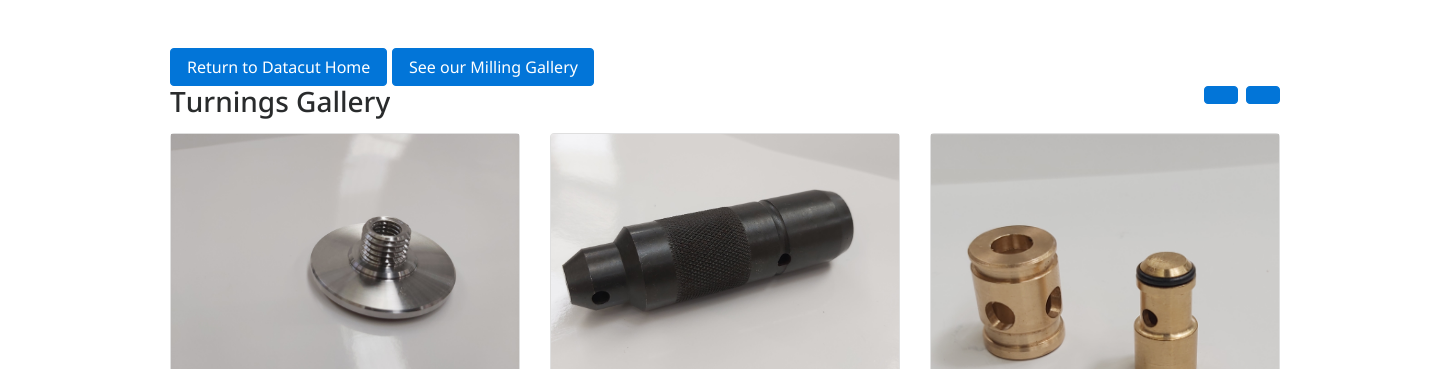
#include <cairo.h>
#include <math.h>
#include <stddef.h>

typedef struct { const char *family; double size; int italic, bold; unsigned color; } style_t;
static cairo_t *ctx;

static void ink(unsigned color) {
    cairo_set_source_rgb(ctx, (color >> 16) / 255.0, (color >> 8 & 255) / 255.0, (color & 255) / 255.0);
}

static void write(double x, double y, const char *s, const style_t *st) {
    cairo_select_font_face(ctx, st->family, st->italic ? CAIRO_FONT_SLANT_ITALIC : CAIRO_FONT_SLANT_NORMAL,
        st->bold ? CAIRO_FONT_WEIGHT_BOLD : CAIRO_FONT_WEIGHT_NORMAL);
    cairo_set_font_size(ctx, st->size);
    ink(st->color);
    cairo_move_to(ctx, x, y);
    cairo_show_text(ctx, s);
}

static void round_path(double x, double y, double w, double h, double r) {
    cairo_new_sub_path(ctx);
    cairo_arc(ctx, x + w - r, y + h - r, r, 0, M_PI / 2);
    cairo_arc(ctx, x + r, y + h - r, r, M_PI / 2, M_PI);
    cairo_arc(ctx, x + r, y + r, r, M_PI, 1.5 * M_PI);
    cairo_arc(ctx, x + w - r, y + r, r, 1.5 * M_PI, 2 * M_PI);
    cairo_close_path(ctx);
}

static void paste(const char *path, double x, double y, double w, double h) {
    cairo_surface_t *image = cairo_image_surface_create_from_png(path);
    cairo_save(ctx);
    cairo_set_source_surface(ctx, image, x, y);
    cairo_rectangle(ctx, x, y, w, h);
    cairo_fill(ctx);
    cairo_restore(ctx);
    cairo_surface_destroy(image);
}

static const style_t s1 = {"Noto Sans", 16, 0, 0, 0xffffff};
static const style_t s2 = {"Noto Sans Medium", 28, 0, 0, 0x292b2c};

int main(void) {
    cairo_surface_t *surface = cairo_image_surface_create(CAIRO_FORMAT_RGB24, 1450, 369);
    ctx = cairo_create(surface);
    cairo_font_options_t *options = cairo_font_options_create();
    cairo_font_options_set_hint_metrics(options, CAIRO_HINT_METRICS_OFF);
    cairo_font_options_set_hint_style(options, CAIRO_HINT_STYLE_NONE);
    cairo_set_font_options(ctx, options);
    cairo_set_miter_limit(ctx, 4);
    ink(0xffffff);
    cairo_paint(ctx);
    ink(0x0275d8);
    round_path(170.5, 48.5, 216, 37, 3.5);
    cairo_fill_preserve(ctx);
    cairo_set_line_width(ctx, 1);
    cairo_stroke(ctx);
    write(187, 73, "Return to Datacut Home", &s1);
    ink(0x0275d8);
    round_path(392.5, 48.5, 201, 37, 3.5);
    cairo_fill_preserve(ctx);
    cairo_stroke(ctx);
    write(409, 73, "See our Milling Gallery", &s1);
    write(170, 112, "Turnings Gallery", &s2);
    ink(0x0275d8);
    round_path(1204.5, 86.5, 33, 17, 3.5);
    cairo_fill_preserve(ctx);
    cairo_stroke(ctx);
    round_path(1246.5, 86.5, 33, 17, 3.5);
    cairo_fill_preserve(ctx);
    cairo_stroke(ctx);
    round_path(170.5, 133.5, 349, 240, 3.5);
    ink(0xdfdfdf);
    cairo_stroke(ctx);
    paste("pic1.png", 171, 134, 348, 235);
    round_path(550.5, 133.5, 349, 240, 3.5);
    cairo_stroke(ctx);
    paste("pic2.png", 551, 134, 348, 235);
    round_path(930.5, 133.5, 349, 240, 3.5);
    cairo_stroke(ctx);
    paste("pic3.png", 931, 134, 348, 235);
    cairo_surface_write_to_png(surface, "screenshot.png");
    cairo_font_options_destroy(options);
    cairo_destroy(ctx);
    cairo_surface_destroy(surface);
    return 0;
}
